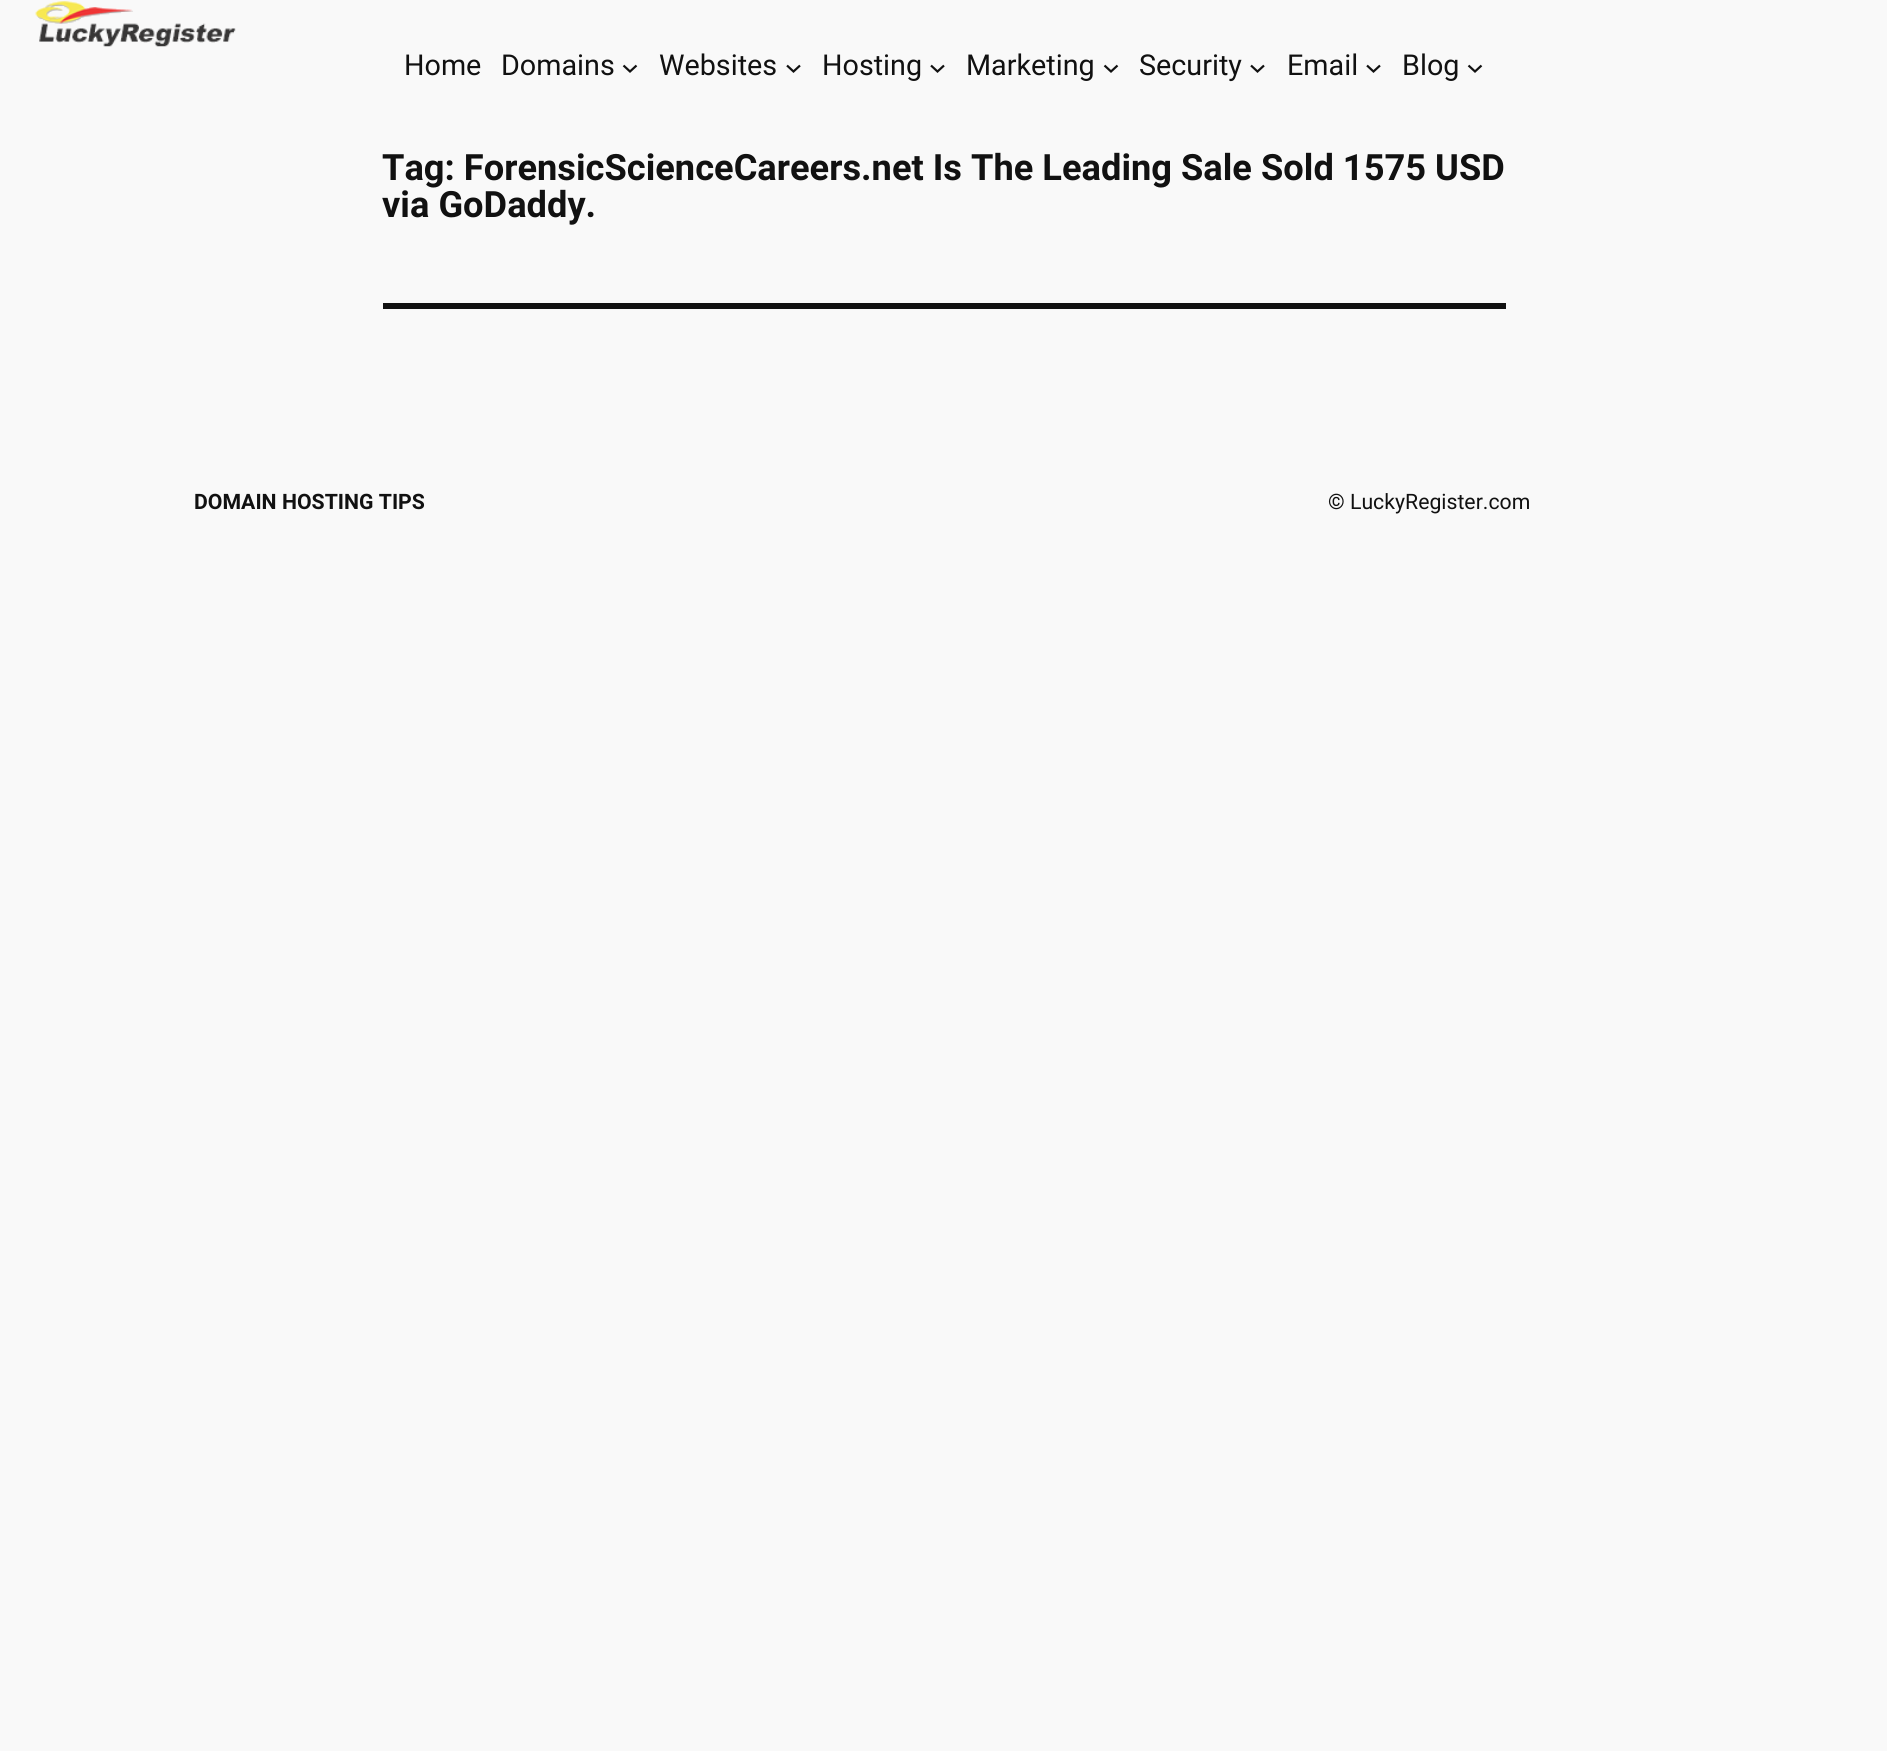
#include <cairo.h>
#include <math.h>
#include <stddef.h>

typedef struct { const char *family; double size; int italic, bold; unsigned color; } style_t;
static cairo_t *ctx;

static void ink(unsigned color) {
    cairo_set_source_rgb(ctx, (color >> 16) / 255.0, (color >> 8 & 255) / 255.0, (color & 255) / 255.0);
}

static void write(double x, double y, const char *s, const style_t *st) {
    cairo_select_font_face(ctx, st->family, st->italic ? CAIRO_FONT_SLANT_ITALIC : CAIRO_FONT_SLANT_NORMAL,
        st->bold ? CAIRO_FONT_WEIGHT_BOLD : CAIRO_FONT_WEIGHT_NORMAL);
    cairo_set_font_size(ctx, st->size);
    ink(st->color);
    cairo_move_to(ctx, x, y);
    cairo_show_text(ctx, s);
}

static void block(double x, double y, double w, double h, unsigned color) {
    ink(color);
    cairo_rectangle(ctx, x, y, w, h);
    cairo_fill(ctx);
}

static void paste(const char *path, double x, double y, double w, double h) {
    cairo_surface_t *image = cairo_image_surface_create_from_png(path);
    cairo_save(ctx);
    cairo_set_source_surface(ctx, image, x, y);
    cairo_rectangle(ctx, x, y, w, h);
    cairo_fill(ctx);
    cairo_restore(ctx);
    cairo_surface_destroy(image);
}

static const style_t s1 = {"Roboto", 28.75, 0, 0, 0x111111};
static const style_t s2 = {"Roboto", 36.25, 0, 1, 0x111111};
static const style_t s3 = {"Roboto", 21.25, 0, 1, 0x111111};
static const style_t s4 = {"Roboto", 21.25, 0, 0, 0x111111};

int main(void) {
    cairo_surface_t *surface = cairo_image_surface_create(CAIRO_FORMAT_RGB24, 1887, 1751);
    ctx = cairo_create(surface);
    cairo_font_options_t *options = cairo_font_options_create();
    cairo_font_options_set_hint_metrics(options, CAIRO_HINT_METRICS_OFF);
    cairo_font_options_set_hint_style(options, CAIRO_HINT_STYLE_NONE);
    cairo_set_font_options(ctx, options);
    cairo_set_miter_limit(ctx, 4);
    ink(0xf9f9f9);
    cairo_paint(ctx);
    paste("pic1.png", 35, 1, 201, 46);
    write(404, 75, "Home", &s1);
    write(501, 75, "Domains", &s1);
    cairo_new_path(ctx);
    cairo_move_to(ctx, 623.5, 65.5);
    cairo_line_to(ctx, 630, 71.5);
    cairo_line_to(ctx, 636.5, 65.5);
    cairo_set_line_width(ctx, 2.2);
    cairo_stroke(ctx);
    write(659, 75, "Websites", &s1);
    cairo_new_path(ctx);
    cairo_move_to(ctx, 787, 65.5);
    cairo_line_to(ctx, 793.5, 71.5);
    cairo_line_to(ctx, 800, 65.5);
    cairo_stroke(ctx);
    write(822, 75, "Hosting", &s1);
    cairo_new_path(ctx);
    cairo_move_to(ctx, 931, 65.5);
    cairo_line_to(ctx, 937.5, 71.5);
    cairo_line_to(ctx, 944, 65.5);
    cairo_stroke(ctx);
    write(966, 75, "Marketing", &s1);
    cairo_new_path(ctx);
    cairo_move_to(ctx, 1104.5, 65.5);
    cairo_line_to(ctx, 1111, 71.5);
    cairo_line_to(ctx, 1117.5, 65.5);
    cairo_stroke(ctx);
    write(1139, 75, "Security", &s1);
    cairo_new_path(ctx);
    cairo_move_to(ctx, 1251, 65.5);
    cairo_line_to(ctx, 1257.5, 71.5);
    cairo_line_to(ctx, 1264, 65.5);
    cairo_stroke(ctx);
    write(1287, 75, "Email", &s1);
    cairo_new_path(ctx);
    cairo_move_to(ctx, 1367, 65.5);
    cairo_line_to(ctx, 1373.5, 71.5);
    cairo_line_to(ctx, 1380, 65.5);
    cairo_stroke(ctx);
    write(1402, 75, "Blog", &s1);
    cairo_new_path(ctx);
    cairo_move_to(ctx, 1468.5, 65.5);
    cairo_line_to(ctx, 1475, 71.5);
    cairo_line_to(ctx, 1481.5, 65.5);
    cairo_stroke(ctx);
    write(382, 180, "Tag: ForensicScienceCareers.net Is The Leading Sale Sold 1575 USD", &s2);
    write(382, 217, "via GoDaddy.", &s2);
    block(383, 303, 1123, 6, 0x111111);
    write(194, 509, "DOMAIN HOSTING TIPS", &s3);
    write(1328, 509, "© LuckyRegister.com", &s4);
    cairo_surface_write_to_png(surface, "screenshot.png");
    cairo_font_options_destroy(options);
    cairo_destroy(ctx);
    cairo_surface_destroy(surface);
    return 0;
}
